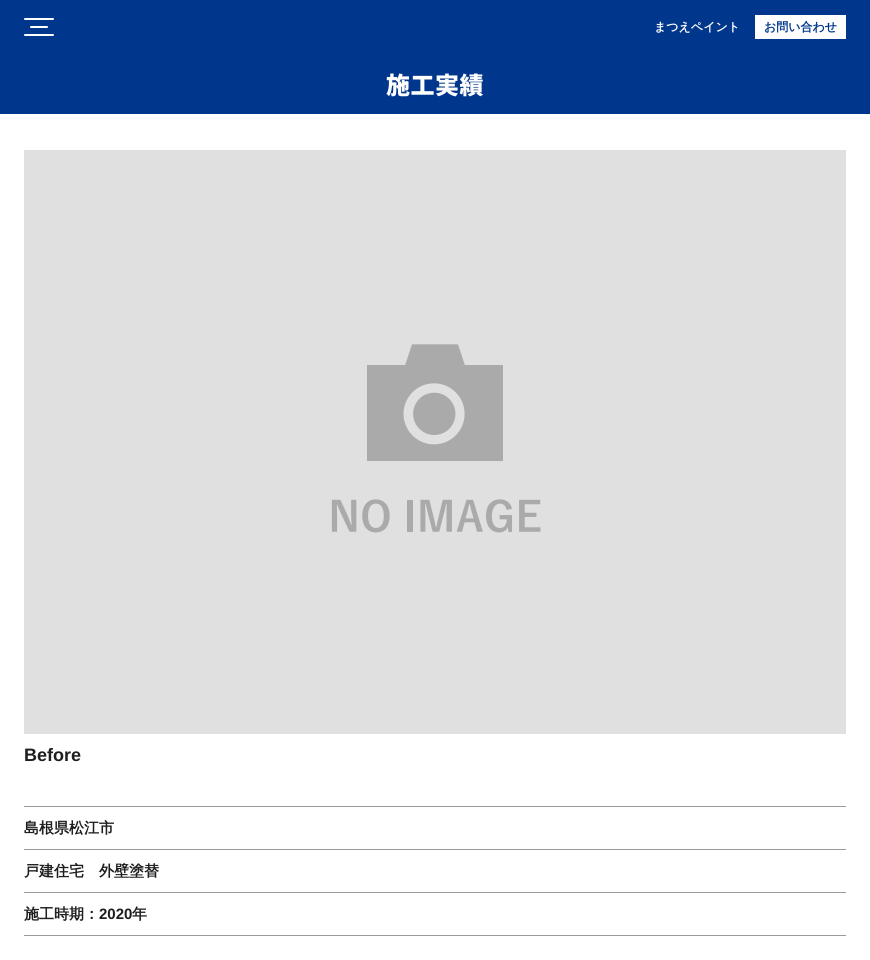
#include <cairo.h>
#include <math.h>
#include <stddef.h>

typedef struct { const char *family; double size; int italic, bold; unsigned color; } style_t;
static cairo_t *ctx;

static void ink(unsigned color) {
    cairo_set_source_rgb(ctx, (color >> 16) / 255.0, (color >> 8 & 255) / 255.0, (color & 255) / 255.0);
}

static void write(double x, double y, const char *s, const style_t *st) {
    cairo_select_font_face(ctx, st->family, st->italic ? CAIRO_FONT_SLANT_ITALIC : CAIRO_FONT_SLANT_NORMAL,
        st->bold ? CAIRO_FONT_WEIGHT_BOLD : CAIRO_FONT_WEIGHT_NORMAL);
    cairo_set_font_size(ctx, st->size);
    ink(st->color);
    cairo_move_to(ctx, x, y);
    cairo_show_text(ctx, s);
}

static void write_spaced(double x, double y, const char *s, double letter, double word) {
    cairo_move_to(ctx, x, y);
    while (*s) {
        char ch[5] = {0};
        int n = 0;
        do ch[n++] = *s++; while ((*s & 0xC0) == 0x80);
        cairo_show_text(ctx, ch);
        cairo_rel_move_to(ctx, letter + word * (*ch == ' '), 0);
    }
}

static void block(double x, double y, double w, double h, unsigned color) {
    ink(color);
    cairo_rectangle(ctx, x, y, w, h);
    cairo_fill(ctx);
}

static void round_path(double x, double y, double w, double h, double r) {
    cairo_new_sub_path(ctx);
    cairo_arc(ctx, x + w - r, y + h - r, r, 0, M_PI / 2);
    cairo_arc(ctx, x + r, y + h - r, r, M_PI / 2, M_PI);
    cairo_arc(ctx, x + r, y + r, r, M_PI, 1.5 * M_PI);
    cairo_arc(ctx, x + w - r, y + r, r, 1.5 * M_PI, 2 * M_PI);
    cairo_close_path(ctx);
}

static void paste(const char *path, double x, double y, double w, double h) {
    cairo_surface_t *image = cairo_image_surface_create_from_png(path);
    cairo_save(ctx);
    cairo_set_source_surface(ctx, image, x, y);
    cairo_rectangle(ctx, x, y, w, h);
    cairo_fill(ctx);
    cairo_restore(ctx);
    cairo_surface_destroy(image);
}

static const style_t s1 = {"WenQuanYi Zen Hei", 12, 0, 1, 0xffffff};
static const style_t s2 = {"WenQuanYi Zen Hei", 12, 0, 1, 0x00378c};
static const style_t s3 = {"Liberation Sans", 18, 0, 1, 0x1e1e1e};
static const style_t s4 = {"WenQuanYi Zen Hei", 15, 0, 1, 0x1e1e1e};
static const style_t s5 = {"Liberation Sans", 15, 0, 1, 0x1e1e1e};

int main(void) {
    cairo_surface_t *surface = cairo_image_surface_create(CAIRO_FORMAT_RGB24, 870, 960);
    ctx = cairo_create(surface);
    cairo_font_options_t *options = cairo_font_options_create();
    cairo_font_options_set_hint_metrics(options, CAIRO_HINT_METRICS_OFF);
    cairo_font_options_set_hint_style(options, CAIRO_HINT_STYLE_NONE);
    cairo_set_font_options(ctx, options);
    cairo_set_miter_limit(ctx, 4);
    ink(0xffffff);
    cairo_paint(ctx);
    block(0, 0, 870, 114, 0x00378c);
    ink(0xffffff);
    round_path(24, 18, 30, 2, 1);
    cairo_fill(ctx);
    round_path(30, 26, 18, 2, 1);
    cairo_fill(ctx);
    round_path(24, 34, 30, 2, 1);
    cairo_fill(ctx);
    write(654, 31, "まつえペイント", &s1);
    block(755, 15, 91, 24, 0xffffff);
    write(764, 31, "お問い合わせ", &s2);
    cairo_select_font_face(ctx, "Noto Sans JP Black", CAIRO_FONT_SLANT_NORMAL, CAIRO_FONT_WEIGHT_NORMAL);
    cairo_set_font_size(ctx, 24);
    ink(0xffffff);
    write_spaced(386, 94, "施工実績", 0.5, 0);
    paste("pic1.png", 24, 150, 822, 584);
    write(24, 761, "Before", &s3);
    block(24, 806, 822, 1, 0x9a9a9a);
    write(24, 833, "島根県松江市", &s4);
    block(24, 849, 822, 1, 0x9a9a9a);
    write(24, 876, "戸建住宅　外壁塗替", &s4);
    block(24, 892, 822, 1, 0x9a9a9a);
    block(24, 935, 822, 1, 0x9a9a9a);
    write(24, 919, "施工時期：", &s4);
    write(99, 919, "2020", &s5);
    write(132, 919, "年", &s4);
    cairo_surface_write_to_png(surface, "screenshot.png");
    cairo_font_options_destroy(options);
    cairo_destroy(ctx);
    cairo_surface_destroy(surface);
    return 0;
}
